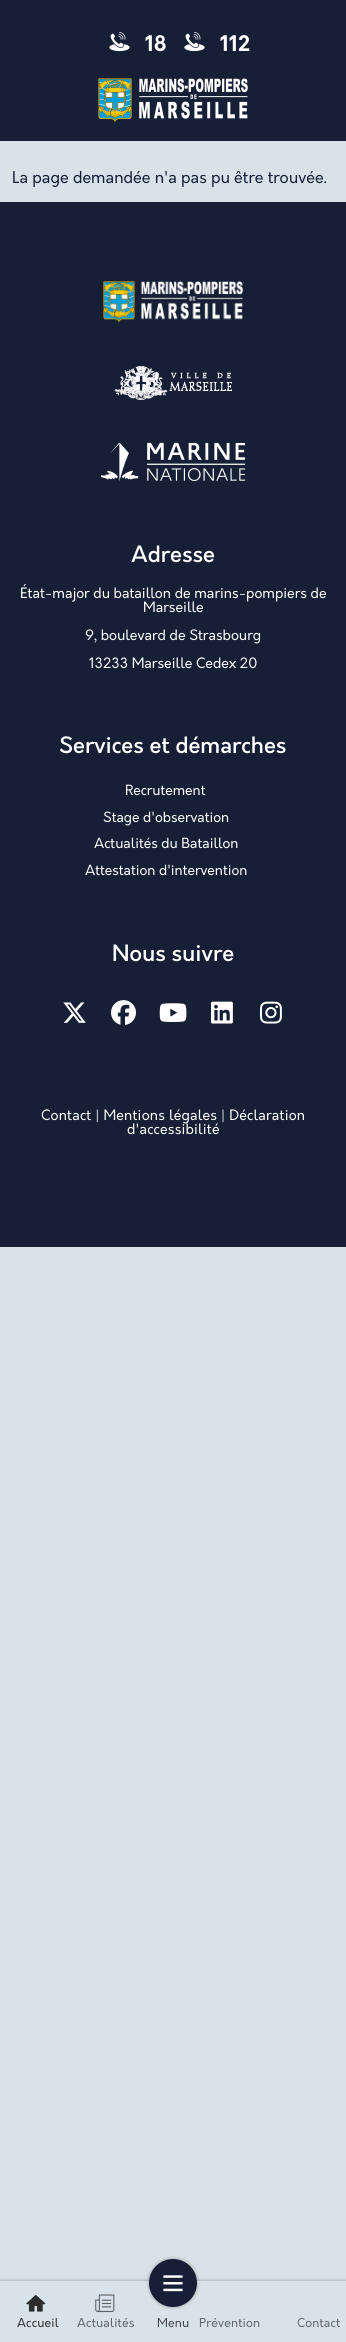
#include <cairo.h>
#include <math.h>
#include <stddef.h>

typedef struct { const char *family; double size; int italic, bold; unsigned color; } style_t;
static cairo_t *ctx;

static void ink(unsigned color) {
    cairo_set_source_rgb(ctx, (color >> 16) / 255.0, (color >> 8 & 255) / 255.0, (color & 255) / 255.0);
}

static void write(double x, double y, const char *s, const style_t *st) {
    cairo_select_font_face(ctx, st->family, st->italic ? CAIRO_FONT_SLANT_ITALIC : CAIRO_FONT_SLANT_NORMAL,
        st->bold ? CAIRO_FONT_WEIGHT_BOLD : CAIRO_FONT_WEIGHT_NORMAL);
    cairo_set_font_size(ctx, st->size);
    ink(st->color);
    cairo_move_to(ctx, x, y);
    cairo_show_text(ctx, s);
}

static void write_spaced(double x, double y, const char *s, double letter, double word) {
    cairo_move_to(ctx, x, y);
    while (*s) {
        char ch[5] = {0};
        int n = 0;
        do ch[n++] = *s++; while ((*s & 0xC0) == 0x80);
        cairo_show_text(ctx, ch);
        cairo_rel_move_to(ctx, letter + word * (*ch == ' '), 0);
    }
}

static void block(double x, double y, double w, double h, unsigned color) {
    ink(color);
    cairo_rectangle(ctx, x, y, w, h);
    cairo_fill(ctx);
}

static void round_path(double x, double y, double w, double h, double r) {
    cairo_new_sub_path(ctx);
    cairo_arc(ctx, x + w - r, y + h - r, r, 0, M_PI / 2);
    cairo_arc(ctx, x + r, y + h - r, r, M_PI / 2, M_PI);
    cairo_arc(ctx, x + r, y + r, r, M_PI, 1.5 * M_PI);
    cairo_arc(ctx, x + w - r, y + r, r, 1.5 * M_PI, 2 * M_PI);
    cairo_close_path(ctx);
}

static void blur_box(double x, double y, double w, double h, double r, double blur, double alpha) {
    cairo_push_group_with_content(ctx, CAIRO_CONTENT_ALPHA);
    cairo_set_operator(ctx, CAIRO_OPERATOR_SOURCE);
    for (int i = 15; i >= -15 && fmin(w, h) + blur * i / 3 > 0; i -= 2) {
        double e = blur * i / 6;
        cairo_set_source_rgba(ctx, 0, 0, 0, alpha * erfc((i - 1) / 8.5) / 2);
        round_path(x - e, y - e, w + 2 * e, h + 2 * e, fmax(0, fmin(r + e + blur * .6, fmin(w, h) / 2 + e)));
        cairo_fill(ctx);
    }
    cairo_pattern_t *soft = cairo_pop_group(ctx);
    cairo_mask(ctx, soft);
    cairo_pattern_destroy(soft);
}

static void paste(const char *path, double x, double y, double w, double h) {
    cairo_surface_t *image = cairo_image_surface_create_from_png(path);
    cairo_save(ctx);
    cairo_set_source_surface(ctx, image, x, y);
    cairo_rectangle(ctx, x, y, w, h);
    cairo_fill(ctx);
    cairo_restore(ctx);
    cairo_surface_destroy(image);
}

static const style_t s1 = {"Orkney", 21, 0, 1, 0xffffff};
static const style_t s2 = {"Orkney", 16, 0, 0, 0x161f36};
static const style_t s3 = {"Orkney Medium", 22, 0, 0, 0xffffff};
static const style_t s4 = {"Orkney", 14, 0, 0, 0xffffff};
static const style_t s5 = {"Orkney", 13.75, 0, 0, 0xffffff};

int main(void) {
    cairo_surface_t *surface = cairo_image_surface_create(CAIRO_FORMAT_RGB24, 346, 2342);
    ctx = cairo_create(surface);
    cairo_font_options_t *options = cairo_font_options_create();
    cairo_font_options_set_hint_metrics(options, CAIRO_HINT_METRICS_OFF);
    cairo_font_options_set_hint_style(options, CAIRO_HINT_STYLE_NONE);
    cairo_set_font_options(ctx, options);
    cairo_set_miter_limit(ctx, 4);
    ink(0xd7e3e8);
    cairo_paint(ctx);
    block(0, 0, 346, 141, 0x161f36);
    paste("pic1.png", 109, 32, 21, 20);
    write(145, 51, "18", &s1);
    paste("pic1.png", 184, 32, 21, 20);
    write(220, 51, "112", &s1);
    paste("pic2.png", 98, 78, 150, 45);
    write(12, 183, "La page demandée n'a pas pu être trouvée.", &s2);
    block(0, 202, 346, 1045, 0x161f36);
    paste("pic3.png", 103, 281, 140, 42);
    paste("pic4.png", 114, 366, 118, 34);
    paste("pic5.png", 101, 442, 145, 39);
    write(131, 562, "Adresse", &s3);
    write(20, 598, "État-major du bataillon de marins-pompiers de", &s4);
    write(143, 612, "Marseille", &s4);
    write(85, 640, "9, boulevard de Strasbourg", &s4);
    write(89, 668, "13233 Marseille Cedex 20", &s4);
    write(59, 753, "Services et démarches", &s3);
    write(125, 795, "Recrutement", &s5);
    write(103, 822, "Stage d'observation", &s5);
    write(94, 848, "Actualités du Bataillon", &s5);
    write(85, 875, "Attestation d'intervention", &s5);
    write(112, 961, "Nous suivre", &s3);
    paste("pic6.png", 63, 1002, 23, 21);
    paste("pic7.png", 111, 1000, 25, 25);
    paste("pic8.png", 159, 1003, 28, 19);
    paste("pic9.png", 211, 1001, 22, 23);
    paste("pic10.png", 260, 1001, 22, 23);
    cairo_select_font_face(ctx, "Orkney", CAIRO_FONT_SLANT_NORMAL, CAIRO_FONT_WEIGHT_NORMAL);
    cairo_set_font_size(ctx, 14);
    write_spaced(41, 1120, "Contact | Mentions légales | Déclaration", 0.2, 0);
    write_spaced(127, 1134, "d'accessibilité", 0.2, 0);
    cairo_save(ctx);
    cairo_rectangle(ctx, 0, 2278, 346, 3);
    cairo_clip(ctx);
    ink(0x000000);
    blur_box(0, 2281, 346, 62, 0, 2, 0.3);
    cairo_restore(ctx);
    paste("pic11.png", 26, 2294, 20, 18);
    cairo_set_font_size(ctx, 12);
    ink(0x2b2d2e);
    write_spaced(17, 2327, "Accueil", 0.2, 0);
    paste("pic12.png", 95, 2294, 20, 19);
    ink(0x5f6466);
    write_spaced(77, 2327, "Actualités", 0.2, 0);
    ink(0x000000);
    blur_box(149, 2259, 48, 48, 24, 2, 0.3);
    ink(0x161f36);
    cairo_arc(ctx, 173, 2283, 24, 0, 2 * M_PI);
    cairo_fill(ctx);
    paste("pic13.png", 163, 2275, 20, 17);
    ink(0x414446);
    write_spaced(157, 2327, "Menu", 0.2, 0);
    ink(0x5f6466);
    write_spaced(199, 2327, "Prévention", 0.2, 0);
    write_spaced(297, 2327, "Contact", 0.2, 0);
    cairo_surface_write_to_png(surface, "screenshot.png");
    cairo_font_options_destroy(options);
    cairo_destroy(ctx);
    cairo_surface_destroy(surface);
    return 0;
}
